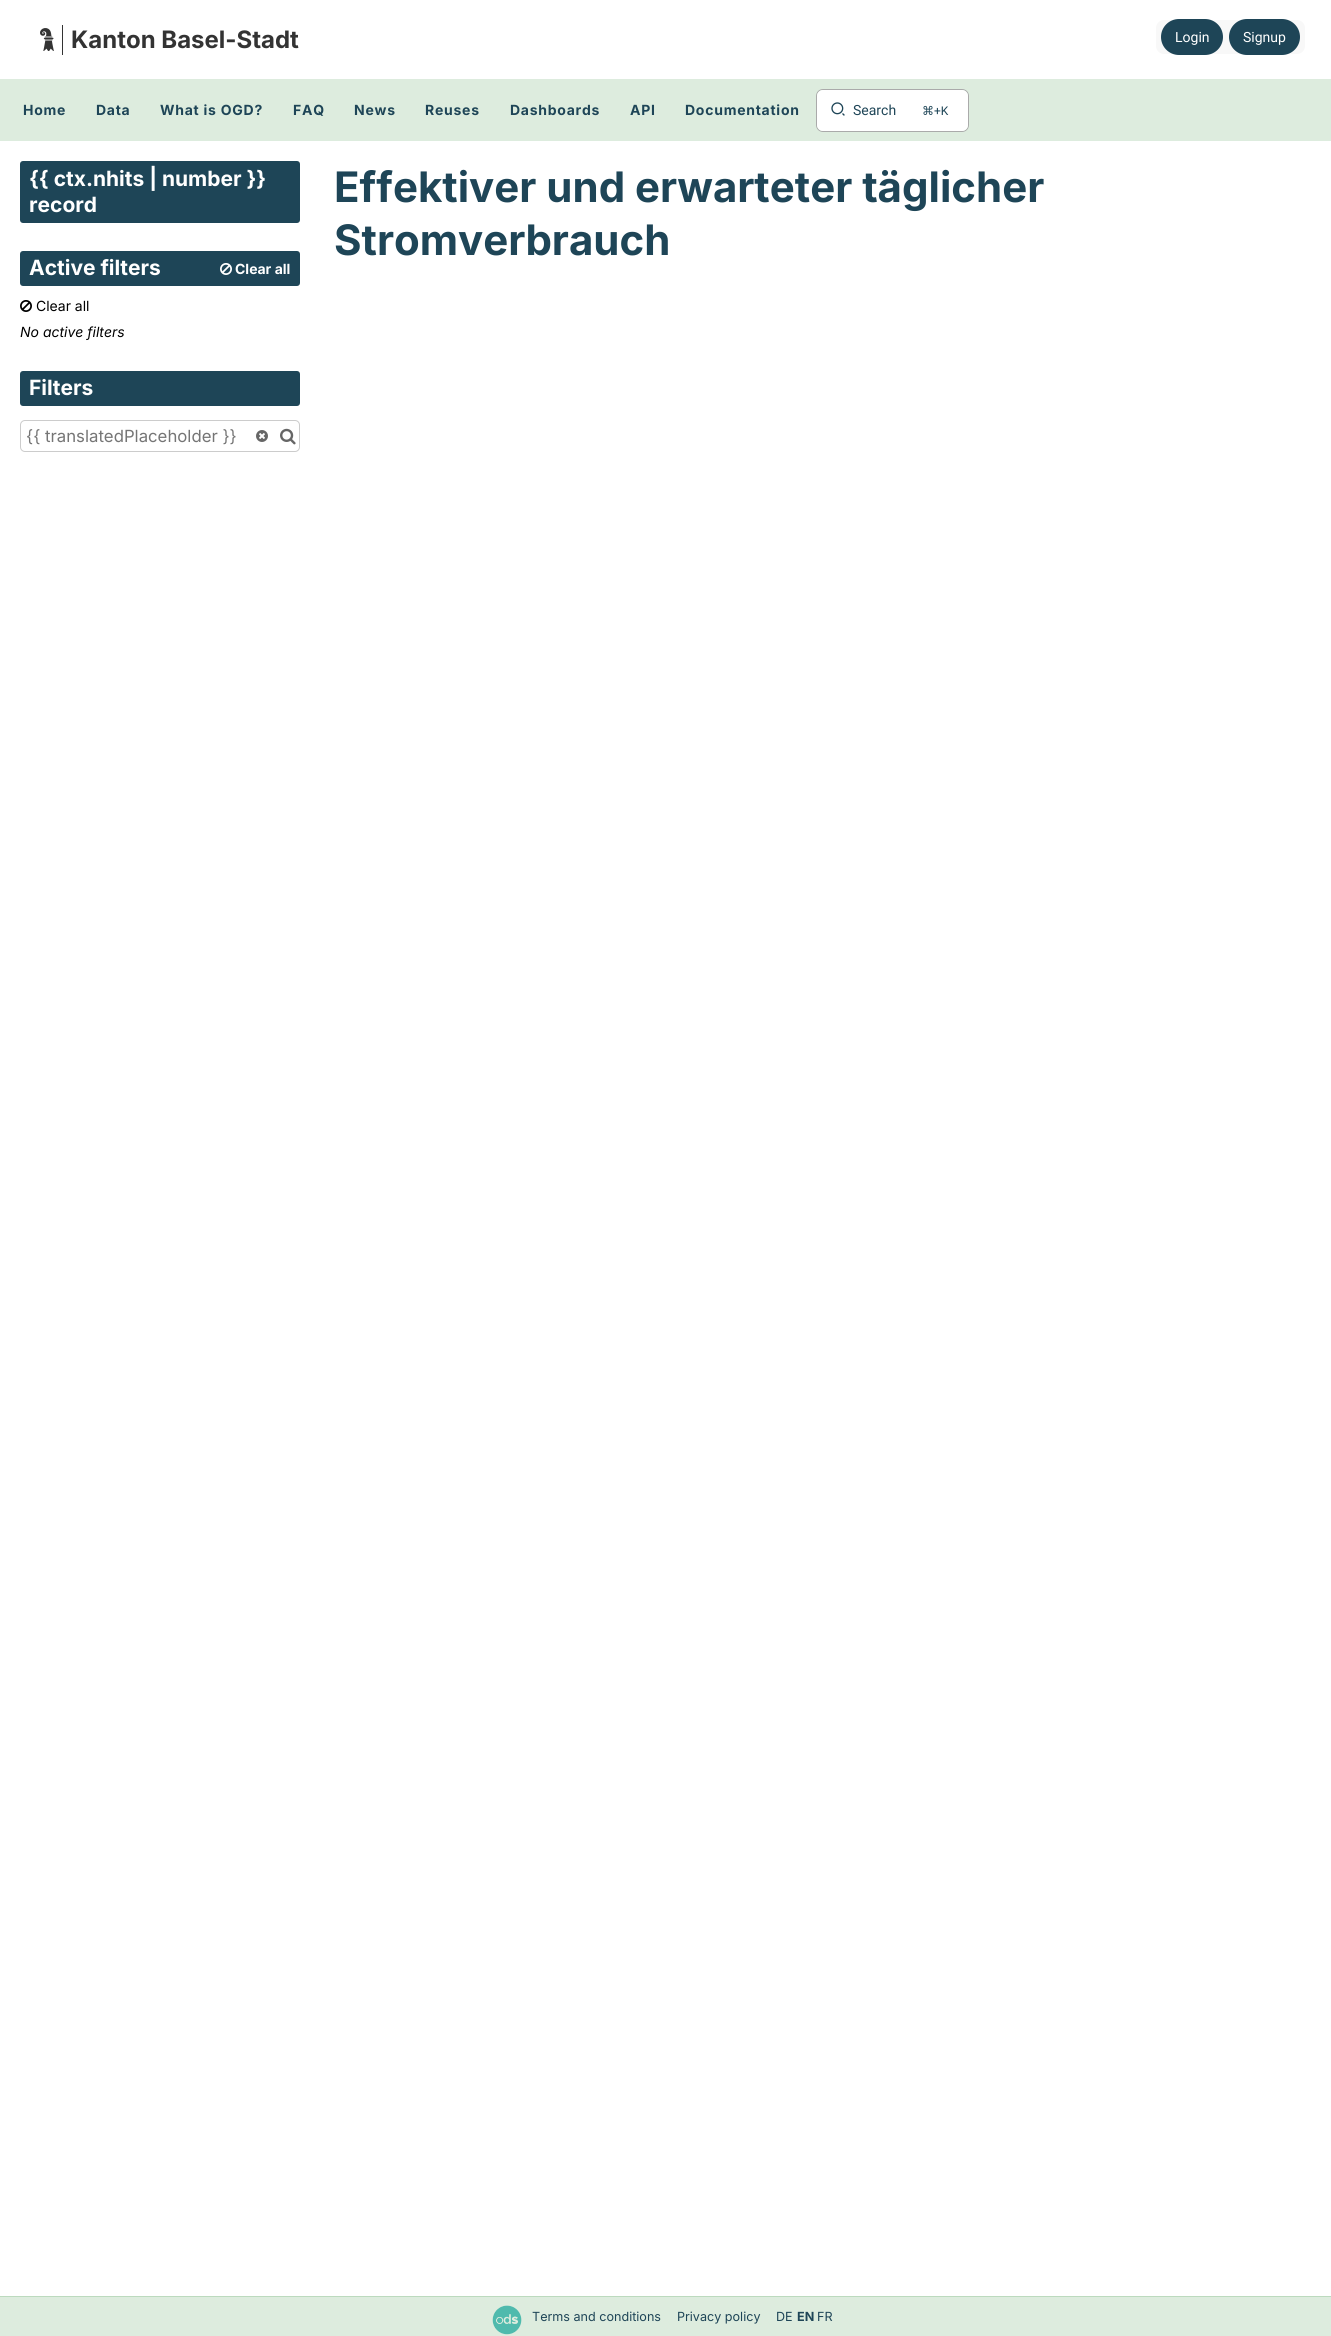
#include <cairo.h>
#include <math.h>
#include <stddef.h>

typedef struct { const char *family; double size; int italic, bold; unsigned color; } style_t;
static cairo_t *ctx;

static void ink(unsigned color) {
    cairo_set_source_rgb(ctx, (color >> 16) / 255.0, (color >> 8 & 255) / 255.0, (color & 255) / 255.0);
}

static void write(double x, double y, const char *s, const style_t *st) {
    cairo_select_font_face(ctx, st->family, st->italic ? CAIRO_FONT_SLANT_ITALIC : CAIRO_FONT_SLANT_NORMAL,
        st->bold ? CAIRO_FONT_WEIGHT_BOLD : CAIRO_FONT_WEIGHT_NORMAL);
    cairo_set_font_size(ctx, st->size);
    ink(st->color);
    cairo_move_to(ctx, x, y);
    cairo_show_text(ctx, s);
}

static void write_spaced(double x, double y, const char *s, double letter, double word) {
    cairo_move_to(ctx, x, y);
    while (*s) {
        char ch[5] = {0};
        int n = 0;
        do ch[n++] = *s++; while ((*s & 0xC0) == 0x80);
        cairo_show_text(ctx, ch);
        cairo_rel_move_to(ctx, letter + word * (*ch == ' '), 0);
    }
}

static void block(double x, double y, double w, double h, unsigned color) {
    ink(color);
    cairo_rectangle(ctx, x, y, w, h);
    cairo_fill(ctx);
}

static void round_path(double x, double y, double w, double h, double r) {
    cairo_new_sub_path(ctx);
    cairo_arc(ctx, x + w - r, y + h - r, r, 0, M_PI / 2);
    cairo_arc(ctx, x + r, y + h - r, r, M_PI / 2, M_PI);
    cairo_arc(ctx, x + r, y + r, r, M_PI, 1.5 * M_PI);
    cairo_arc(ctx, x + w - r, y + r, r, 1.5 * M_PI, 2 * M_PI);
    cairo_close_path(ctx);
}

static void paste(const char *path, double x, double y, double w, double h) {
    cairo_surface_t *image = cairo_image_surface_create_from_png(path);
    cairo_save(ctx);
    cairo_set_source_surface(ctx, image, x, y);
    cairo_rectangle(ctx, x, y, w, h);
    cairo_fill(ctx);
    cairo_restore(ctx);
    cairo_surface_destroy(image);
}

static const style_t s1 = {"Inter", 24, 0, 1, 0x333333};
static const style_t s2 = {"Roboto", 14, 0, 0, 0xffffff};
static const style_t s3 = {"Roboto", 14, 0, 0, 0x1e4557};
static const style_t s4 = {"DejaVu Sans", 12, 0, 0, 0x1e4557};
static const style_t s5 = {"Roboto", 12, 0, 0, 0x1e4557};
static const style_t s6 = {"Inter", 21, 0, 1, 0xffffff};
static const style_t s7 = {"Inter", 14, 0, 1, 0xffffff};
static const style_t s8 = {"Inter", 14, 0, 0, 0x000000};
static const style_t s9 = {"Inter", 14, 1, 0, 0x000000};
static const style_t s10 = {"Inter", 16.75, 0, 0, 0x757575};
static const style_t s11 = {"Inter", 42, 0, 1, 0x1e4557};
static const style_t s12 = {"Inter", 12.6, 0, 0, 0x1e4557};
static const style_t s13 = {"Inter", 12.6, 0, 1, 0x1e4557};

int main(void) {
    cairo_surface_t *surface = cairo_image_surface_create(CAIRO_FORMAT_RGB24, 1331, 2336);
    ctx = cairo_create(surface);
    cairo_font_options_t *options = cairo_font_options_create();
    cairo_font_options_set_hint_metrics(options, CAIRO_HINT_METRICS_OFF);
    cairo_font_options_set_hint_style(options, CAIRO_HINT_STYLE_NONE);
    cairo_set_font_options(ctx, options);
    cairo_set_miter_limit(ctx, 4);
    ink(0xffffff);
    cairo_paint(ctx);
    block(0, 79, 1331, 62, 0xddecde);
    paste("pic1.png", 40, 28, 14, 23);
    block(62, 25, 1, 30, 0x333333);
    write(71, 48, "Kanton Basel-Stadt", &s1);
    ink(0xf8f8f8);
    round_path(1156, 20, 149, 34, 8);
    cairo_fill(ctx);
    ink(0x1e4557);
    round_path(1161, 19, 62, 36, 18);
    cairo_fill(ctx);
    write(1175, 42, "Login", &s2);
    ink(0x1e4557);
    round_path(1229, 19, 71, 36, 18);
    cairo_fill(ctx);
    write(1243, 42, "Signup", &s2);
    cairo_select_font_face(ctx, "Inter", CAIRO_FONT_SLANT_NORMAL, CAIRO_FONT_WEIGHT_BOLD);
    ink(0x1e4557);
    write_spaced(23, 115, "Home", 0.75, 0);
    write_spaced(96, 115, "Data", 0.75, 0);
    write_spaced(160, 115, "What is OGD?", 0.75, 0);
    write_spaced(293, 115, "FAQ", 0.75, 0);
    write_spaced(354, 115, "News", 0.75, 0);
    write_spaced(425, 115, "Reuses", 0.75, 0);
    write_spaced(510, 115, "Dashboards", 0.75, 0);
    write_spaced(630, 115, "API", 0.75, 0);
    write_spaced(685, 115, "Documentation", 0.75, 0);
    round_path(816.5, 89.5, 152, 42, 6.5);
    ink(0xaaaaaa);
    cairo_set_line_width(ctx, 1);
    cairo_stroke(ctx);
    ink(0xffffff);
    round_path(817, 90, 151, 41, 6);
    cairo_fill(ctx);
    paste("pic2.png", 831, 102, 14, 14);
    write(853, 115, "Search", &s3);
    write(922, 115, "⌘", &s4);
    write(934, 115, "+K", &s5);
    round_path(20, 161, 280, 62, 3);
    cairo_fill(ctx);
    write(29, 186, "{{ ctx.nhits | number }}", &s6);
    write(29, 212, "record", &s6);
    ink(0x1e4557);
    round_path(20, 251, 280, 35, 3);
    cairo_fill(ctx);
    write(29, 275, "Active filters", &s6);
    paste("pic3.png", 220, 263, 12, 12);
    write(235, 274, "Clear all", &s7);
    paste("pic4.png", 20, 300, 12, 12);
    write(36, 311, "Clear all", &s8);
    write(20, 337, "No active filters", &s9);
    ink(0x1e4557);
    round_path(20, 371, 280, 35, 3);
    cairo_fill(ctx);
    write(29, 395, "Filters", &s6);
    round_path(20.5, 420.5, 279, 31, 4.5);
    ink(0xcccccc);
    cairo_stroke(ctx);
    write(26, 442, "{{ translatedPlaceholder }}", &s10);
    paste("pic5.png", 256, 430, 12, 12);
    paste("pic6.png", 280, 428, 16, 17);
    write(334, 202, "Effektiver und erwarteter täglicher", &s11);
    write(334, 255, "Stromverbrauch", &s11);
    block(0, 2297, 1331, 39, 0xddecde);
    block(0, 2296, 1331, 1, 0xbcdabe);
    paste("pic7.png", 492, 2305, 30, 30);
    write(532, 2321, "Terms and conditions", &s12);
    write(677, 2321, "Privacy policy", &s12);
    write(776, 2321, "DE", &s12);
    write(797, 2321, "EN", &s13);
    write(817, 2321, "FR", &s12);
    cairo_surface_write_to_png(surface, "screenshot.png");
    cairo_font_options_destroy(options);
    cairo_destroy(ctx);
    cairo_surface_destroy(surface);
    return 0;
}
